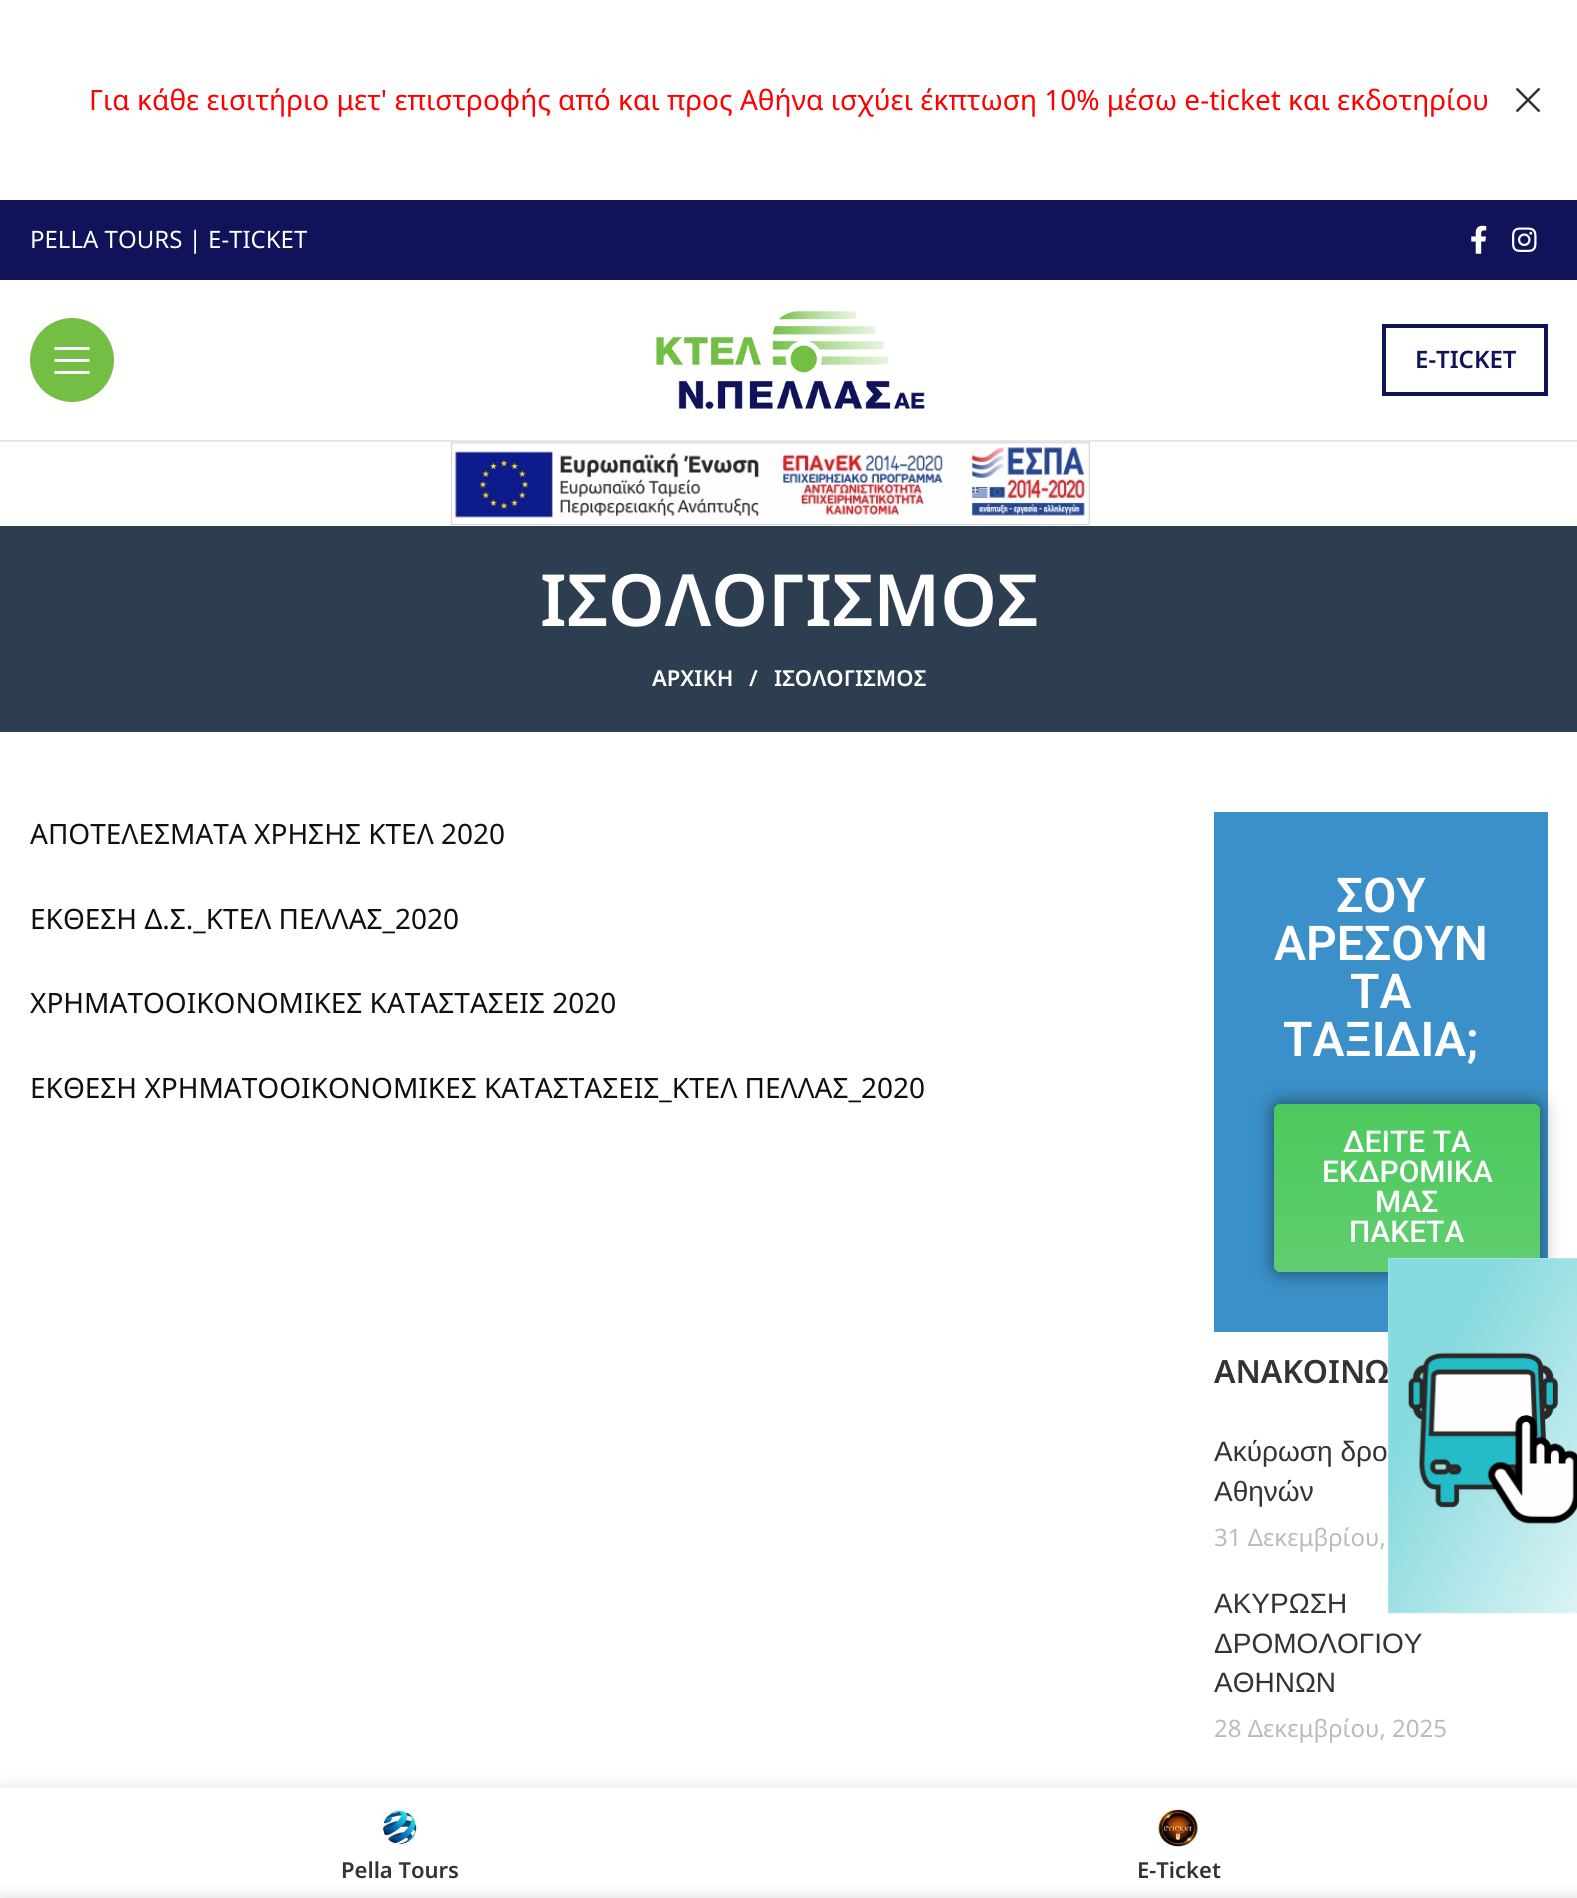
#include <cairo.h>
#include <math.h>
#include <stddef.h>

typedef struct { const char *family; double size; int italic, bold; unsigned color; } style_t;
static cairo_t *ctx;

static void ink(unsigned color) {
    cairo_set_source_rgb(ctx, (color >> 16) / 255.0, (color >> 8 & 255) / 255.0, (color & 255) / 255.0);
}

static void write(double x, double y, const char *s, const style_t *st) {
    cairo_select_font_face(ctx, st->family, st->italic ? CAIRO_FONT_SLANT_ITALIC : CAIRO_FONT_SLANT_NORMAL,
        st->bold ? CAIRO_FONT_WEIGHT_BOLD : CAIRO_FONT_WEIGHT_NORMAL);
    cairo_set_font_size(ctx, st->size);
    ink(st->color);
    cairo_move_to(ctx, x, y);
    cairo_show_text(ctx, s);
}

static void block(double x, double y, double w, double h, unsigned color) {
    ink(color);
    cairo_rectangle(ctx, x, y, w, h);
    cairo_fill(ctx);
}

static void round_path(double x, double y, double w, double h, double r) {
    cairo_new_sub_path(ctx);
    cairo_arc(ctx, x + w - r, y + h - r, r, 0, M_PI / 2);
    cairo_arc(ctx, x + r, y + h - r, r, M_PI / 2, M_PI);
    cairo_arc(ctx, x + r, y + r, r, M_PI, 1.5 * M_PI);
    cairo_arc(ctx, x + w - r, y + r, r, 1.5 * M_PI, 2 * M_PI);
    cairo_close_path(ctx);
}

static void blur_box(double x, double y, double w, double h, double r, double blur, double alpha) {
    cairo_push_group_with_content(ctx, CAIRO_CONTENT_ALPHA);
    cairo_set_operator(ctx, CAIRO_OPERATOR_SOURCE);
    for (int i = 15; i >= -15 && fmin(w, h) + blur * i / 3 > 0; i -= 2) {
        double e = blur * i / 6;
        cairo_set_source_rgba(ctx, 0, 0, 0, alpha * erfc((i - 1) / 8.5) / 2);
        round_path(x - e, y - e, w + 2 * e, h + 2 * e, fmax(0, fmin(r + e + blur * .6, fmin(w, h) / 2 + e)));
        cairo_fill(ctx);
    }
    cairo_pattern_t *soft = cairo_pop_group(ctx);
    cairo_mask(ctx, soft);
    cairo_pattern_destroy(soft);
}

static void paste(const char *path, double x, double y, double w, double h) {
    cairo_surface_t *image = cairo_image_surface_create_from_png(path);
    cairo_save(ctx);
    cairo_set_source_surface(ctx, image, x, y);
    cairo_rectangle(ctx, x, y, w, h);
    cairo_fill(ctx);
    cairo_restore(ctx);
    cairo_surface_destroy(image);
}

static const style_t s1 = {"Noto Sans", 28, 0, 0, 0xff0000};
static const style_t s2 = {"Noto Sans", 24, 0, 0, 0xffffff};
static const style_t s3 = {"Noto Sans SemiBold", 24, 0, 0, 0x10135a};
static const style_t s4 = {"Noto Sans SemiBold", 72, 0, 0, 0xffffff};
static const style_t s5 = {"Noto Sans SemiBold", 22, 0, 0, 0xffffff};
static const style_t s6 = {"Noto Sans", 28, 0, 0, 0x0f0f0f};
static const style_t s7 = {"Roboto SemiBold", 48, 0, 0, 0xffffff};
static const style_t s8 = {"Roboto Medium", 30, 0, 0, 0xffffff};
static const style_t s9 = {"Noto Sans SemiBold", 32, 0, 0, 0x333333};
static const style_t s10 = {"Liberation Sans", 28, 0, 0, 0x333333};
static const style_t s11 = {"Noto Sans", 24, 0, 0, 0xbbbbbb};
static const style_t s12 = {"Noto Sans SemiBold", 22, 0, 0, 0x333333};

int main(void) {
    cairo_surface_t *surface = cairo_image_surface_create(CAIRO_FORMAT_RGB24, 1577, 1898);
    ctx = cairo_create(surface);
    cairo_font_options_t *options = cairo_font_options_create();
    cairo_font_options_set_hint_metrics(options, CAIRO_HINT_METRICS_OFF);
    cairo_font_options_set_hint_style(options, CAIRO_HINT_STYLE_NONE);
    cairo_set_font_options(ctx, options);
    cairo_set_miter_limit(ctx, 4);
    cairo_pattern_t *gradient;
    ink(0xffffff);
    cairo_paint(ctx);
    write(89, 110, "Για κάθε εισιτήριο μετ' επιστροφής από και προς Αθήνα ισχύει έκπτωση 10% μέσω e-ticket και εκδοτηρίου", &s1);
    paste("pic1.png", 1515, 87, 26, 26);
    block(0, 200, 1577, 80, 0x10135a);
    write(30, 248, "PELLA TOURS | E-TICKET", &s2);
    paste("pic2.png", 1471, 225, 16, 29);
    paste("pic3.png", 1512, 227, 25, 25);
    block(0, 440, 1577, 2, 0xe6e6e6);
    ink(0x73bf45);
    cairo_arc(ctx, 72, 360, 42, 0, 2 * M_PI);
    cairo_fill(ctx);
    ink(0xffffff);
    cairo_new_path(ctx);
    cairo_move_to(ctx, 54.5, 350);
    cairo_line_to(ctx, 89.5, 350);
    cairo_line_to(ctx, 89.5, 347);
    cairo_line_to(ctx, 54.5, 347);
    cairo_close_path(ctx);
    cairo_move_to(ctx, 54.5, 362);
    cairo_line_to(ctx, 89.5, 362);
    cairo_line_to(ctx, 89.5, 359);
    cairo_line_to(ctx, 54.5, 359);
    cairo_close_path(ctx);
    cairo_move_to(ctx, 54.5, 374);
    cairo_line_to(ctx, 89.5, 374);
    cairo_line_to(ctx, 89.5, 371);
    cairo_line_to(ctx, 54.5, 371);
    cairo_close_path(ctx);
    cairo_fill(ctx);
    paste("pic4.png", 656, 310, 269, 100);
    cairo_rectangle(ctx, 1384, 326, 162, 68);
    ink(0x10135a);
    cairo_set_line_width(ctx, 4);
    cairo_stroke(ctx);
    write(1415, 368, "E-TICKET", &s3);
    paste("pic5.png", 450, 442, 640, 84);
    block(0, 526, 1577, 206, 0x2c3e50);
    write(540, 626, "ΙΣΟΛΟΓΙΣΜΟΣ", &s4);
    write(652, 686, "ΑΡΧΙΚΗ", &s5);
    write(749, 686, "/", &s5);
    write(774, 686, "ΙΣΟΛΟΓΙΣΜΟΣ", &s5);
    write(30, 844, "ΑΠΟΤΕΛΕΣΜΑΤΑ ΧΡΗΣΗΣ ΚΤΕΛ 2020", &s6);
    write(30, 929, "ΕΚΘΕΣΗ Δ.Σ._ΚΤΕΛ ΠΕΛΛΑΣ_2020", &s6);
    write(30, 1013, "ΧΡΗΜΑΤΟΟΙΚΟΝΟΜΙΚΕΣ ΚΑΤΑΣΤΑΣΕΙΣ 2020", &s6);
    write(30, 1098, "ΕΚΘΕΣΗ ΧΡΗΜΑΤΟΟΙΚΟΝΟΜΙΚΕΣ ΚΑΤΑΣΤΑΣΕΙΣ_ΚΤΕΛ ΠΕΛΛΑΣ_2020", &s6);
    block(1214, 812, 334, 520, 0x3b90c9);
    write(1336, 912, "ΣΟΥ", &s7);
    write(1274, 960, "ΑΡΕΣΟΥΝ", &s7);
    write(1350, 1008, "ΤΑ", &s7);
    write(1283, 1056, "ΤΑΞΙΔΙΑ;", &s7);
    ink(0x000000);
    blur_box(1274, 1104, 266, 168, 6, 10, 0.5);
    gradient = cairo_pattern_create_linear(1407, 1104, 1407, 1272);
    cairo_pattern_add_color_stop_rgba(gradient, 0, 0.294, 0.788, 0.361, 1);
    cairo_pattern_add_color_stop_rgba(gradient, 1, 0.38, 0.808, 0.439, 1);
    cairo_set_source(ctx, gradient);
    cairo_pattern_destroy(gradient);
    round_path(1274, 1104, 266, 168, 6);
    cairo_fill(ctx);
    write(1343, 1152, "ΔΕΙΤΕ ΤΑ", &s8);
    write(1322, 1182, "ΕΚΔΡΟΜΙΚΑ", &s8);
    write(1375, 1212, "ΜΑΣ", &s8);
    write(1349, 1242, "ΠΑΚΕΤΑ", &s8);
    write(1214, 1383, "ΑΝΑΚΟΙΝΩ", &s9);
    write(1214, 1461, "Ακύρωση δρο", &s10);
    write(1214, 1501, "Αθηνών", &s10);
    write(1214, 1546, "31 Δεκεμβρίου,", &s11);
    write(1214, 1613, "ΑΚΥΡΩΣΗ", &s10);
    write(1214, 1653, "ΔΡΟΜΟΛΟΓΙΟΥ", &s10);
    write(1214, 1692, "ΑΘΗΝΩΝ", &s10);
    write(1214, 1737, "28 Δεκεμβρίου, 2025", &s11);
    paste("pic6.png", 1388, 1258, 189, 356);
    ink(0x000000);
    blur_box(0, 1788, 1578, 110, 0, 9, 0.12);
    block(0, 1788, 1577, 110, 0xffffff);
    paste("pic7.png", 380, 1808, 39, 39);
    write(341, 1878, "Pella Tours", &s12);
    paste("pic8.png", 1158, 1808, 40, 39);
    write(1137, 1878, "E-Ticket", &s12);
    ink(0x000000);
    blur_box(0, 1898, 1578, 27, 0, 9, 0.14);
    cairo_surface_write_to_png(surface, "screenshot.png");
    cairo_font_options_destroy(options);
    cairo_destroy(ctx);
    cairo_surface_destroy(surface);
    return 0;
}
